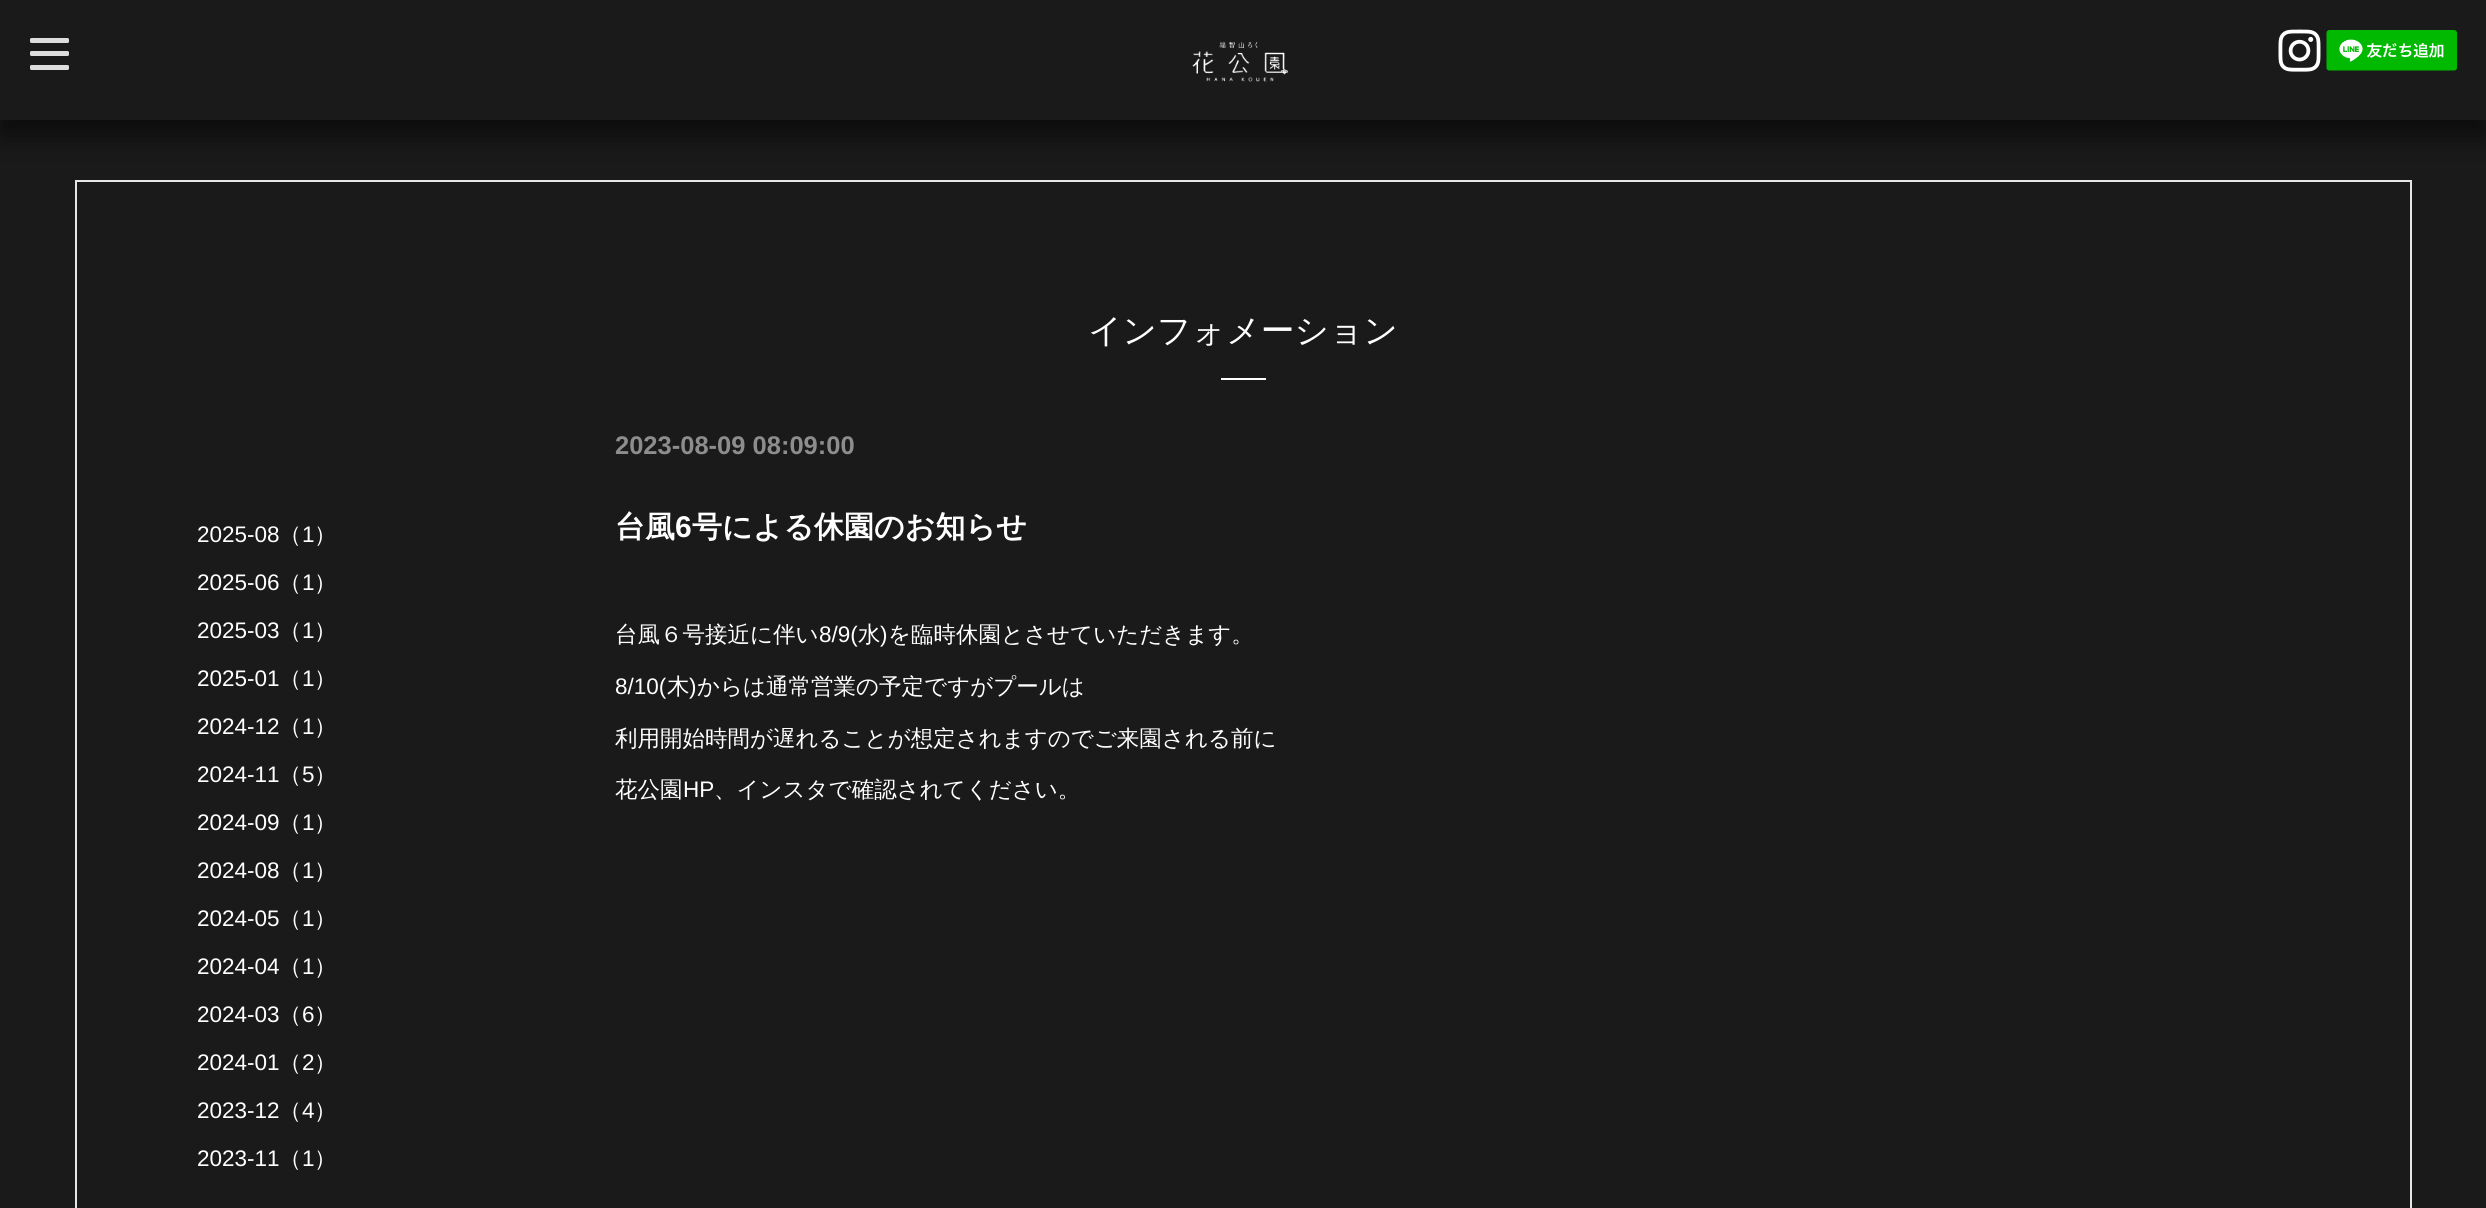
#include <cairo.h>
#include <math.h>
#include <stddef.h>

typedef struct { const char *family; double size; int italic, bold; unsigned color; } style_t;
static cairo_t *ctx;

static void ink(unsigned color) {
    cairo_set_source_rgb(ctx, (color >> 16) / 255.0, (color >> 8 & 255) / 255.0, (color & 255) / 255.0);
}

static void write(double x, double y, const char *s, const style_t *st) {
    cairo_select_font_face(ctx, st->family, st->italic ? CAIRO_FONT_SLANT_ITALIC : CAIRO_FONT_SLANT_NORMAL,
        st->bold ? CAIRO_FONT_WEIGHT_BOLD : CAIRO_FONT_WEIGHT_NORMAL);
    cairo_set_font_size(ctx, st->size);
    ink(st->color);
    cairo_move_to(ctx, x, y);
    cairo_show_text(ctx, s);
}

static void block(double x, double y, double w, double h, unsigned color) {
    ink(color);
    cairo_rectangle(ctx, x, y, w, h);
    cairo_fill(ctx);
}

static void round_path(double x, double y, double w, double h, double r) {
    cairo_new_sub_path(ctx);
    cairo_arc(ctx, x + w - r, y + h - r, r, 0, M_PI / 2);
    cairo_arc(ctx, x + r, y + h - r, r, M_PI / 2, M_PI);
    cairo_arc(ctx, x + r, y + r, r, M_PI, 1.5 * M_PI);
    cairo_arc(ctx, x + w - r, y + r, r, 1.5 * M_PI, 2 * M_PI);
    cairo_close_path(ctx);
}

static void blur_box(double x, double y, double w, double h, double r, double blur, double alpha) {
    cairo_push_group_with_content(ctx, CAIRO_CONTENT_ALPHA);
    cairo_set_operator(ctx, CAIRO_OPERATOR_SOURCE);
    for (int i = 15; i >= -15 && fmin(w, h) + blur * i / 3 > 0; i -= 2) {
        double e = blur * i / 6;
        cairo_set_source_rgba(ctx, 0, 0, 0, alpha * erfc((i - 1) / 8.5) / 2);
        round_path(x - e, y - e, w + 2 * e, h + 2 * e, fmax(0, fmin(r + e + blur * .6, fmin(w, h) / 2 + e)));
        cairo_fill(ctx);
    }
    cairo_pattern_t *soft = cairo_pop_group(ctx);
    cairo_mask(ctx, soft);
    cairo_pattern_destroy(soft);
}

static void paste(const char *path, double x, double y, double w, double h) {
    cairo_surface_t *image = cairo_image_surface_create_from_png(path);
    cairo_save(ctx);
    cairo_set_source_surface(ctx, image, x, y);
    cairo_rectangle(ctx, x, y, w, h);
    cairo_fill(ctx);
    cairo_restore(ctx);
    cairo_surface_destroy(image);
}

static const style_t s1 = {"WenQuanYi Zen Hei Medium", 33.75, 0, 0, 0xffffff};
static const style_t s2 = {"Liberation Sans", 22.5, 0, 0, 0xffffff};
static const style_t s3 = {"WenQuanYi Zen Hei Medium", 22.5, 0, 0, 0xffffff};
static const style_t s4 = {"Liberation Sans", 25.5, 0, 1, 0x8d8d8d};
static const style_t s5 = {"WenQuanYi Zen Hei", 30, 0, 1, 0xffffff};
static const style_t s6 = {"Liberation Sans", 30, 0, 1, 0xffffff};

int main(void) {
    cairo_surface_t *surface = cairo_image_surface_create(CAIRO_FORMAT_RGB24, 2486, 1208);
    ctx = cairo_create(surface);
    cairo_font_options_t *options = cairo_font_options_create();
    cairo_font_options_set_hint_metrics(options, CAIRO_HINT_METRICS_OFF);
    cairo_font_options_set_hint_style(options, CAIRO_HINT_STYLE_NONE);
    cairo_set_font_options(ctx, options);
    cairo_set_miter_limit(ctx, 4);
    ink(0x1a1a1a);
    cairo_paint(ctx);
    cairo_rectangle(ctx, 76, 181, 2335, 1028);
    ink(0xe6e6e6);
    cairo_stroke(ctx);
    cairo_save(ctx);
    cairo_rectangle(ctx, 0, 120, 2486, 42);
    cairo_clip(ctx);
    ink(0x000000);
    blur_box(0, 15, 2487, 120, 0, 15, 0.6);
    cairo_restore(ctx);
    ink(0xdddddd);
    round_path(30, 51, 39, 5, 1.5);
    cairo_fill(ctx);
    round_path(30, 38, 39, 5, 1.5);
    cairo_fill(ctx);
    round_path(30, 65, 39, 5, 1.5);
    cairo_fill(ctx);
    paste("pic1.png", 1192, 41, 96, 41);
    paste("pic2.png", 2278, 29, 43, 43);
    paste("pic3.png", 2326, 30, 131, 41);
    write(1088, 342, "インフォメーション", &s1);
    block(1221, 378, 45, 2, 0xffffff);
    write(197, 542, "2025-08", &s2);
    write(279, 542, "（", &s3);
    write(302, 542, "1", &s2);
    write(314, 542, "）", &s3);
    write(197, 590, "2025-06", &s2);
    write(279, 590, "（", &s3);
    write(302, 590, "1", &s2);
    write(314, 590, "）", &s3);
    write(197, 638, "2025-03", &s2);
    write(279, 638, "（", &s3);
    write(302, 638, "1", &s2);
    write(314, 638, "）", &s3);
    write(197, 686, "2025-01", &s2);
    write(279, 686, "（", &s3);
    write(302, 686, "1", &s2);
    write(314, 686, "）", &s3);
    write(197, 734, "2024-12", &s2);
    write(279, 734, "（", &s3);
    write(302, 734, "1", &s2);
    write(314, 734, "）", &s3);
    write(197, 782, "2024-11", &s2);
    write(279, 782, "（", &s3);
    write(302, 782, "5", &s2);
    write(314, 782, "）", &s3);
    write(197, 830, "2024-09", &s2);
    write(279, 830, "（", &s3);
    write(302, 830, "1", &s2);
    write(314, 830, "）", &s3);
    write(197, 878, "2024-08", &s2);
    write(279, 878, "（", &s3);
    write(302, 878, "1", &s2);
    write(314, 878, "）", &s3);
    write(197, 926, "2024-05", &s2);
    write(279, 926, "（", &s3);
    write(302, 926, "1", &s2);
    write(314, 926, "）", &s3);
    write(197, 974, "2024-04", &s2);
    write(279, 974, "（", &s3);
    write(302, 974, "1", &s2);
    write(314, 974, "）", &s3);
    write(197, 1022, "2024-03", &s2);
    write(279, 1022, "（", &s3);
    write(302, 1022, "6", &s2);
    write(314, 1022, "）", &s3);
    write(197, 1070, "2024-01", &s2);
    write(279, 1070, "（", &s3);
    write(302, 1070, "2", &s2);
    write(314, 1070, "）", &s3);
    write(197, 1118, "2023-12", &s2);
    write(279, 1118, "（", &s3);
    write(302, 1118, "4", &s2);
    write(314, 1118, "）", &s3);
    write(197, 1166, "2023-11", &s2);
    write(279, 1166, "（", &s3);
    write(302, 1166, "1", &s2);
    write(314, 1166, "）", &s3);
    write(615, 454, "2023-08-09 08:09:00", &s4);
    write(615, 537, "台風", &s5);
    write(675, 537, "6", &s6);
    write(692, 537, "号による休園のお知らせ", &s5);
    write(615, 642, "台風６号接近に伴い", &s3);
    write(819, 642, "8/9(", &s2);
    write(858, 642, "水", &s3);
    write(880, 642, ")", &s2);
    write(888, 642, "を臨時休園とさせていただきます。", &s3);
    write(615, 694, "8/10(", &s2);
    write(667, 694, "木", &s3);
    write(689, 694, ")", &s2);
    write(697, 694, "からは通常営業の予定ですがプールは", &s3);
    write(615, 746, "利用開始時間が遅れることが想定されますのでご来園される前に", &s3);
    write(615, 797, "花公園", &s3);
    write(683, 797, "HP", &s2);
    write(714, 797, "、インスタで確認されてください。", &s3);
    cairo_surface_write_to_png(surface, "screenshot.png");
    cairo_font_options_destroy(options);
    cairo_destroy(ctx);
    cairo_surface_destroy(surface);
    return 0;
}
